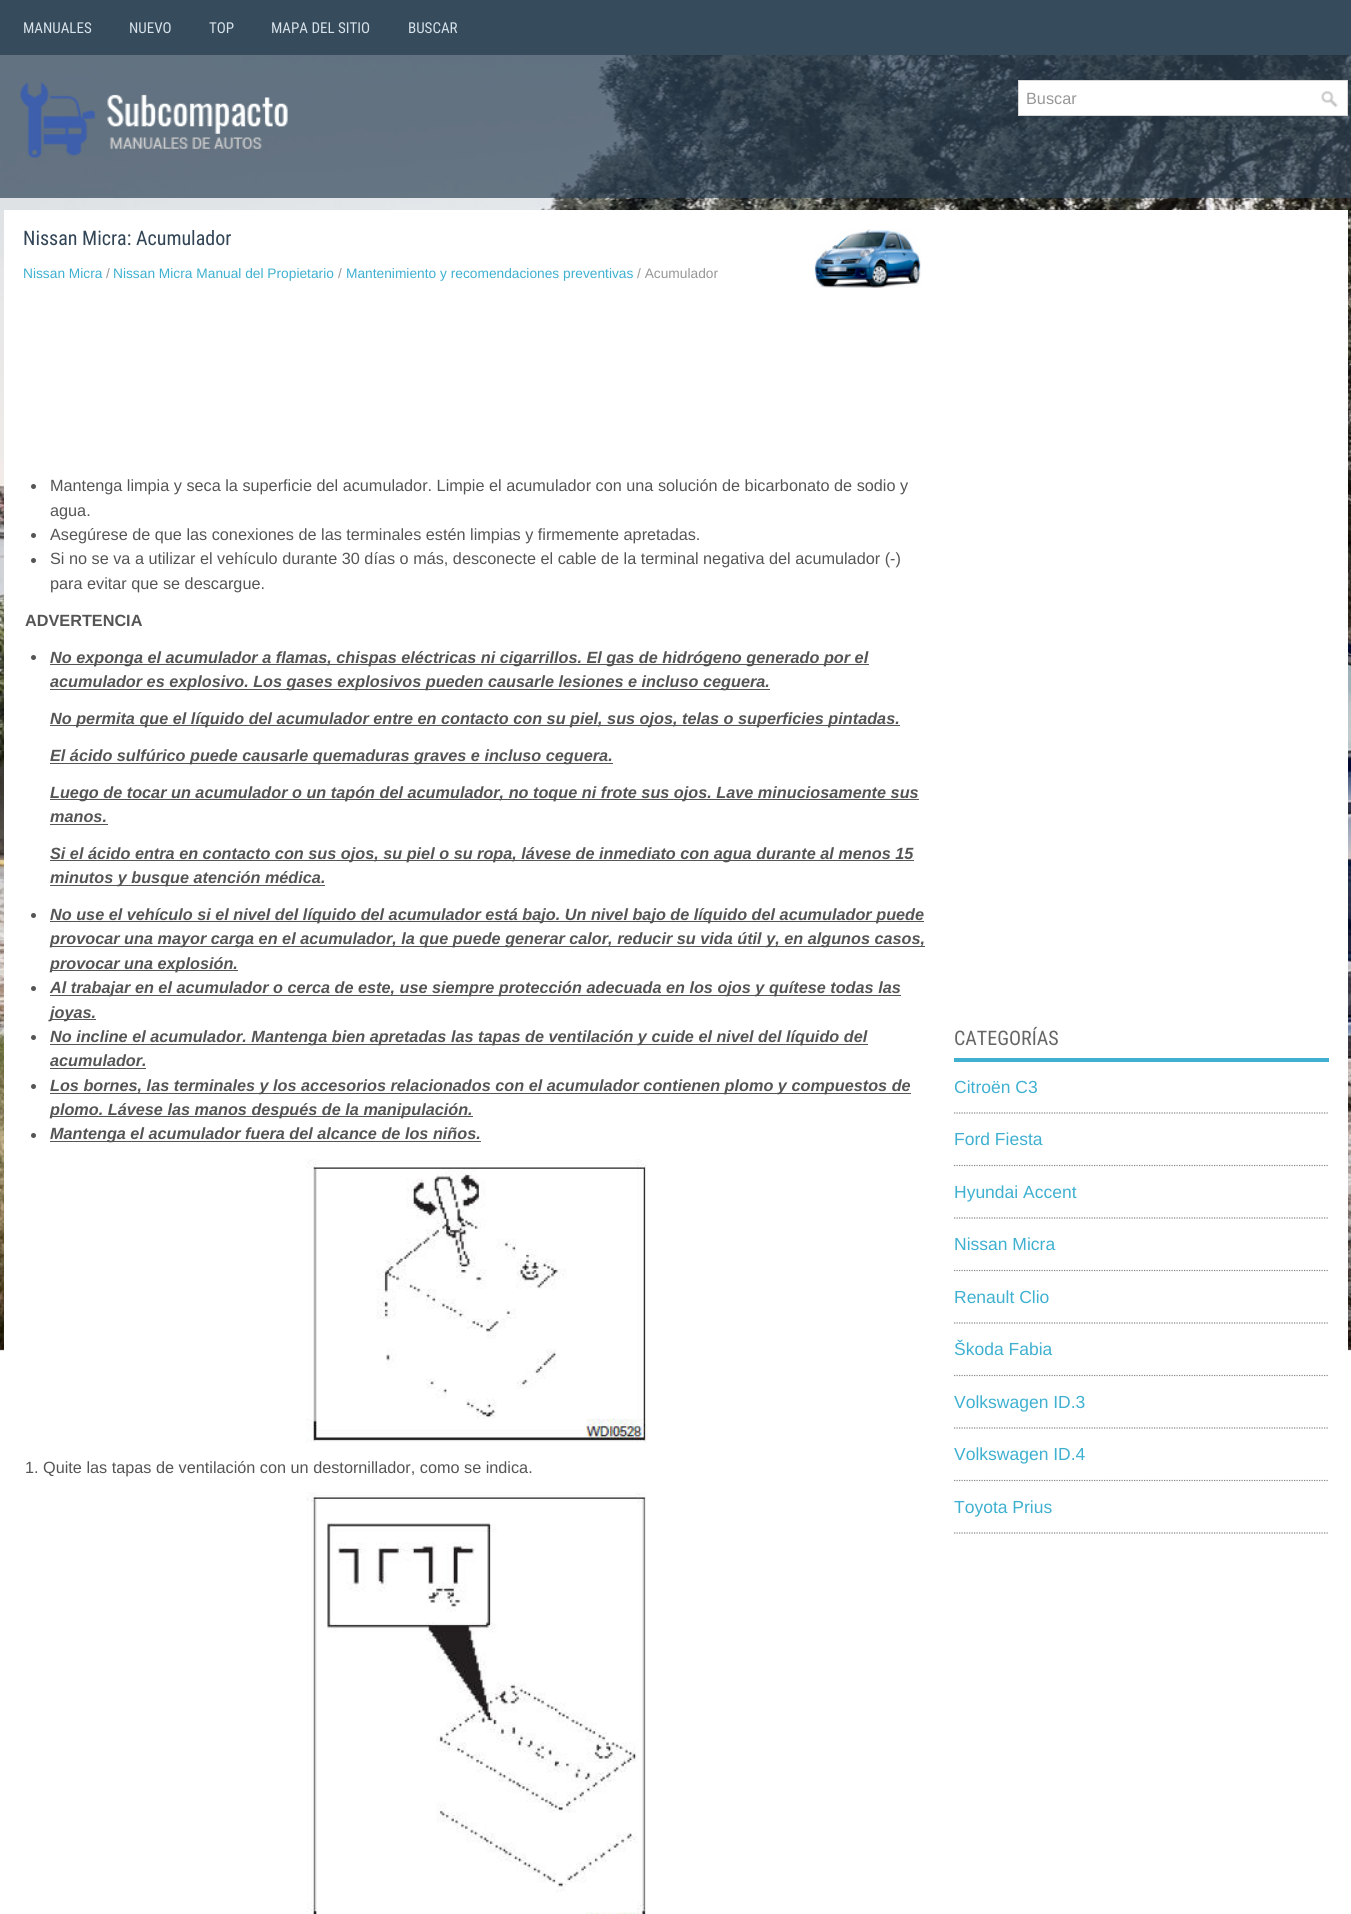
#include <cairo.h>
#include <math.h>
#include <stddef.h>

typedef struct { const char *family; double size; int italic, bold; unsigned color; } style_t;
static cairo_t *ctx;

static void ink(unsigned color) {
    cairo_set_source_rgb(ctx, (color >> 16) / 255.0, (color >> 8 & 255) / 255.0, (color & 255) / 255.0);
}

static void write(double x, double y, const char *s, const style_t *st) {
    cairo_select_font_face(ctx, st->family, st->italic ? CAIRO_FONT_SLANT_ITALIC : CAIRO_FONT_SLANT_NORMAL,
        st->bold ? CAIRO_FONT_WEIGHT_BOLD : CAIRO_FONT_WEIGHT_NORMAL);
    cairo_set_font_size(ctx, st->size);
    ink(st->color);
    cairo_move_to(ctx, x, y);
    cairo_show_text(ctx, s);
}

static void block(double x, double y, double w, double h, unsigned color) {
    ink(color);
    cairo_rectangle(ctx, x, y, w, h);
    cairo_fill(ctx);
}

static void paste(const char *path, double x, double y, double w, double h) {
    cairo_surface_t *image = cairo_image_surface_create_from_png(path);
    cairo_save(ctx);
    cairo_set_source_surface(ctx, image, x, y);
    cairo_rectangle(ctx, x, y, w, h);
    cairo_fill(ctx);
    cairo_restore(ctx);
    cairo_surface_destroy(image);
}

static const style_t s1 = {"Roboto Condensed", 15, 0, 0, 0xd6e1e9};
static const style_t s2 = {"Liberation Sans", 16.25, 0, 0, 0x979797};
static const style_t s3 = {"Roboto Condensed", 20, 0, 0, 0x314556};
static const style_t s4 = {"Liberation Sans", 13.75, 0, 0, 0x3fb0d0};
static const style_t s5 = {"Liberation Sans", 13.75, 0, 0, 0x979797};
static const style_t s6 = {"Liberation Sans", 16.25, 0, 0, 0x555555};
static const style_t s7 = {"Liberation Sans", 16.25, 0, 1, 0x555555};
static const style_t s8 = {"Liberation Sans", 16.25, 1, 1, 0x555555};
static const style_t s9 = {"Roboto Condensed", 20, 0, 0, 0x666666};
static const style_t s10 = {"Liberation Sans", 17.5, 0, 0, 0x3fb0d0};

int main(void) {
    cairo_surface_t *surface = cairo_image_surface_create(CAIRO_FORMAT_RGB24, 1351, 1914);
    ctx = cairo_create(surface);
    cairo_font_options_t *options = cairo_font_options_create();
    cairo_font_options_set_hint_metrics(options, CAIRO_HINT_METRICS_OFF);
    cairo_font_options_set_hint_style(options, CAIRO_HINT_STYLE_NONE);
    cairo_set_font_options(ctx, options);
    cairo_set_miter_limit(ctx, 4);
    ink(0xffffff);
    cairo_paint(ctx);
    paste("pic1.png", 0, 55, 1351, 1296);
    cairo_set_source_rgba(ctx, 0.192, 0.271, 0.341, 0.7);
    cairo_rectangle(ctx, 0, 55, 1351, 143);
    cairo_fill(ctx);
    block(0, 0, 1351, 55, 0x364b5c);
    write(23, 33, "MANUALES", &s1);
    write(129, 33, "NUEVO", &s1);
    write(209, 33, "TOP", &s1);
    write(271, 33, "MAPA DEL SITIO", &s1);
    write(408, 33, "BUSCAR", &s1);
    paste("pic2.png", 20, 82, 268, 76);
    ink(0xffffff);
    cairo_rectangle(ctx, 1018.5, 80.5, 329, 35);
    cairo_fill_preserve(ctx);
    ink(0xd8d8d8);
    cairo_set_line_width(ctx, 1);
    cairo_stroke(ctx);
    write(1026, 104, "Buscar", &s2);
    paste("pic3.png", 1321, 91, 17, 17);
    block(4, 210, 1344, 1141, 0xffffff);
    write(23, 245, "Nissan Micra: Acumulador", &s3);
    paste("pic4.png", 814, 229, 107, 59);
    write(23, 278, "Nissan Micra", &s4);
    write(106, 278, "/", &s5);
    write(113, 278, "Nissan Micra Manual del Propietario", &s4);
    write(338, 278, "/", &s5);
    write(346, 278, "Mantenimiento y recomendaciones preventivas", &s4);
    write(637, 278, "/ Acumulador", &s5);
    ink(0x555555);
    cairo_new_path(ctx);
    cairo_arc(ctx, 33.5, 486.5, 2.5, 0, 2 * M_PI);
    cairo_fill(ctx);
    write(50, 491, "Mantenga limpia y seca la superficie del acumulador. Limpie el acumulador con una solución de bicarbonato de sodio y", &s6);
    write(50, 516, "agua.", &s6);
    cairo_new_path(ctx);
    cairo_arc(ctx, 33.5, 535.5, 2.5, 0, 2 * M_PI);
    cairo_fill(ctx);
    write(50, 540, "Asegúrese de que las conexiones de las terminales estén limpias y firmemente apretadas.", &s6);
    cairo_new_path(ctx);
    cairo_arc(ctx, 33.5, 560.5, 2.5, 0, 2 * M_PI);
    cairo_fill(ctx);
    write(50, 564, "Si no se va a utilizar el vehículo durante 30 días o más, desconecte el cable de la terminal negativa del acumulador (-)", &s6);
    write(50, 589, "para evitar que se descargue.", &s6);
    write(25, 626, "ADVERTENCIA", &s7);
    cairo_new_path(ctx);
    cairo_arc(ctx, 33.5, 657.5, 2.5, 0, 2 * M_PI);
    cairo_fill(ctx);
    block(50, 664, 819, 1, 0x555555);
    write(50, 663, "No exponga el acumulador a flamas, chispas eléctricas ni cigarrillos. El gas de hidrógeno generado por el", &s8);
    block(50, 689, 720, 1, 0x555555);
    write(50, 687, "acumulador es explosivo. Los gases explosivos pueden causarle lesiones e incluso ceguera.", &s8);
    block(50, 725, 850, 1, 0x555555);
    write(50, 724, "No permita que el líquido del acumulador entre en contacto con su piel, sus ojos, telas o superficies pintadas.", &s8);
    block(50, 763, 563, 1, 0x555555);
    write(50, 761, "El ácido sulfúrico puede causarle quemaduras graves e incluso ceguera.", &s8);
    block(50, 799, 869, 1, 0x555555);
    write(50, 798, "Luego de tocar un acumulador o un tapón del acumulador, no toque ni frote sus ojos. Lave minuciosamente sus", &s8);
    write(50, 822, "manos.", &s8);
    block(50, 824, 58, 1, 0x555555);
    block(50, 860, 864, 1, 0x555555);
    write(50, 859, "Si el ácido entra en contacto con sus ojos, su piel o su ropa, lávese de inmediato con agua durante al menos 15", &s8);
    block(50, 885, 275, 1, 0x555555);
    write(50, 883, "minutos y busque atención médica.", &s8);
    cairo_new_path(ctx);
    cairo_arc(ctx, 33.5, 915.5, 2.5, 0, 2 * M_PI);
    cairo_fill(ctx);
    block(50, 921, 874, 1, 0x555555);
    write(50, 920, "No use el vehículo si el nivel del líquido del acumulador está bajo. Un nivel bajo de líquido del acumulador puede", &s8);
    block(50, 946, 875, 1, 0x555555);
    write(50, 944, "provocar una mayor carga en el acumulador, la que puede generar calor, reducir su vida útil y, en algunos casos,", &s8);
    block(50, 970, 188, 1, 0x555555);
    write(50, 969, "provocar una explosión.", &s8);
    cairo_new_path(ctx);
    cairo_arc(ctx, 33.5, 988.5, 2.5, 0, 2 * M_PI);
    cairo_fill(ctx);
    block(50, 995, 851, 1, 0x555555);
    write(50, 993, "Al trabajar en el acumulador o cerca de este, use siempre protección adecuada en los ojos y quítese todas las", &s8);
    block(50, 1019, 46, 1, 0x555555);
    write(50, 1018, "joyas.", &s8);
    cairo_new_path(ctx);
    cairo_arc(ctx, 33.5, 1037.5, 2.5, 0, 2 * M_PI);
    cairo_fill(ctx);
    block(50, 1044, 818, 1, 0x555555);
    write(50, 1042, "No incline el acumulador. Mantenga bien apretadas las tapas de ventilación y cuide el nivel del líquido del", &s8);
    write(50, 1066, "acumulador.", &s8);
    block(50, 1068, 96, 1, 0x555555);
    cairo_new_path(ctx);
    cairo_arc(ctx, 33.5, 1086.5, 2.5, 0, 2 * M_PI);
    cairo_fill(ctx);
    block(50, 1093, 861, 1, 0x555555);
    write(50, 1091, "Los bornes, las terminales y los accesorios relacionados con el acumulador contienen plomo y compuestos de", &s8);
    block(50, 1116, 423, 1, 0x555555);
    write(50, 1115, "plomo. Lávese las manos después de la manipulación.", &s8);
    cairo_new_path(ctx);
    cairo_arc(ctx, 33.5, 1135.5, 2.5, 0, 2 * M_PI);
    cairo_fill(ctx);
    block(50, 1141, 431, 1, 0x555555);
    write(50, 1139, "Mantenga el acumulador fuera del alcance de los niños.", &s8);
    paste("pic5.png", 306, 1159, 341, 284);
    write(25, 1473, "1. Quite las tapas de ventilación con un destornillador, como se indica.", &s6);
    paste("pic6.png", 306, 1492, 340, 422);
    block(954, 1058, 375, 4, 0x3fb0d0);
    write(954, 1045, "CATEGORÍAS", &s9);
    cairo_new_path(ctx);
    cairo_move_to(ctx, 954, 1113);
    cairo_line_to(ctx, 1329, 1113);
    ink(0x888888);
    cairo_set_line_width(ctx, 1.2);
    cairo_set_dash(ctx, (double[]){1.25, 1.25}, 2, 0);
    cairo_stroke(ctx);
    write(954, 1093, "Citroën C3", &s10);
    cairo_new_path(ctx);
    cairo_move_to(ctx, 954, 1165.5);
    cairo_line_to(ctx, 1329, 1165.5);
    ink(0x888888);
    cairo_stroke(ctx);
    write(954, 1145, "Ford Fiesta", &s10);
    cairo_new_path(ctx);
    cairo_move_to(ctx, 954, 1218);
    cairo_line_to(ctx, 1329, 1218);
    ink(0x888888);
    cairo_stroke(ctx);
    write(954, 1198, "Hyundai Accent", &s10);
    cairo_new_path(ctx);
    cairo_move_to(ctx, 954, 1270.5);
    cairo_line_to(ctx, 1329, 1270.5);
    ink(0x888888);
    cairo_stroke(ctx);
    write(954, 1250, "Nissan Micra", &s10);
    cairo_new_path(ctx);
    cairo_move_to(ctx, 954, 1323);
    cairo_line_to(ctx, 1329, 1323);
    ink(0x888888);
    cairo_stroke(ctx);
    write(954, 1303, "Renault Clio", &s10);
    cairo_new_path(ctx);
    cairo_move_to(ctx, 954, 1375.5);
    cairo_line_to(ctx, 1329, 1375.5);
    ink(0x888888);
    cairo_stroke(ctx);
    write(954, 1355, "Škoda Fabia", &s10);
    cairo_new_path(ctx);
    cairo_move_to(ctx, 954, 1428);
    cairo_line_to(ctx, 1329, 1428);
    ink(0x888888);
    cairo_stroke(ctx);
    write(954, 1408, "Volkswagen ID.3", &s10);
    cairo_new_path(ctx);
    cairo_move_to(ctx, 954, 1480.5);
    cairo_line_to(ctx, 1329, 1480.5);
    ink(0x888888);
    cairo_stroke(ctx);
    write(954, 1460, "Volkswagen ID.4", &s10);
    cairo_new_path(ctx);
    cairo_move_to(ctx, 954, 1533);
    cairo_line_to(ctx, 1329, 1533);
    ink(0x888888);
    cairo_stroke(ctx);
    write(954, 1513, "Toyota Prius", &s10);
    cairo_surface_write_to_png(surface, "screenshot.png");
    cairo_font_options_destroy(options);
    cairo_destroy(ctx);
    cairo_surface_destroy(surface);
    return 0;
}
